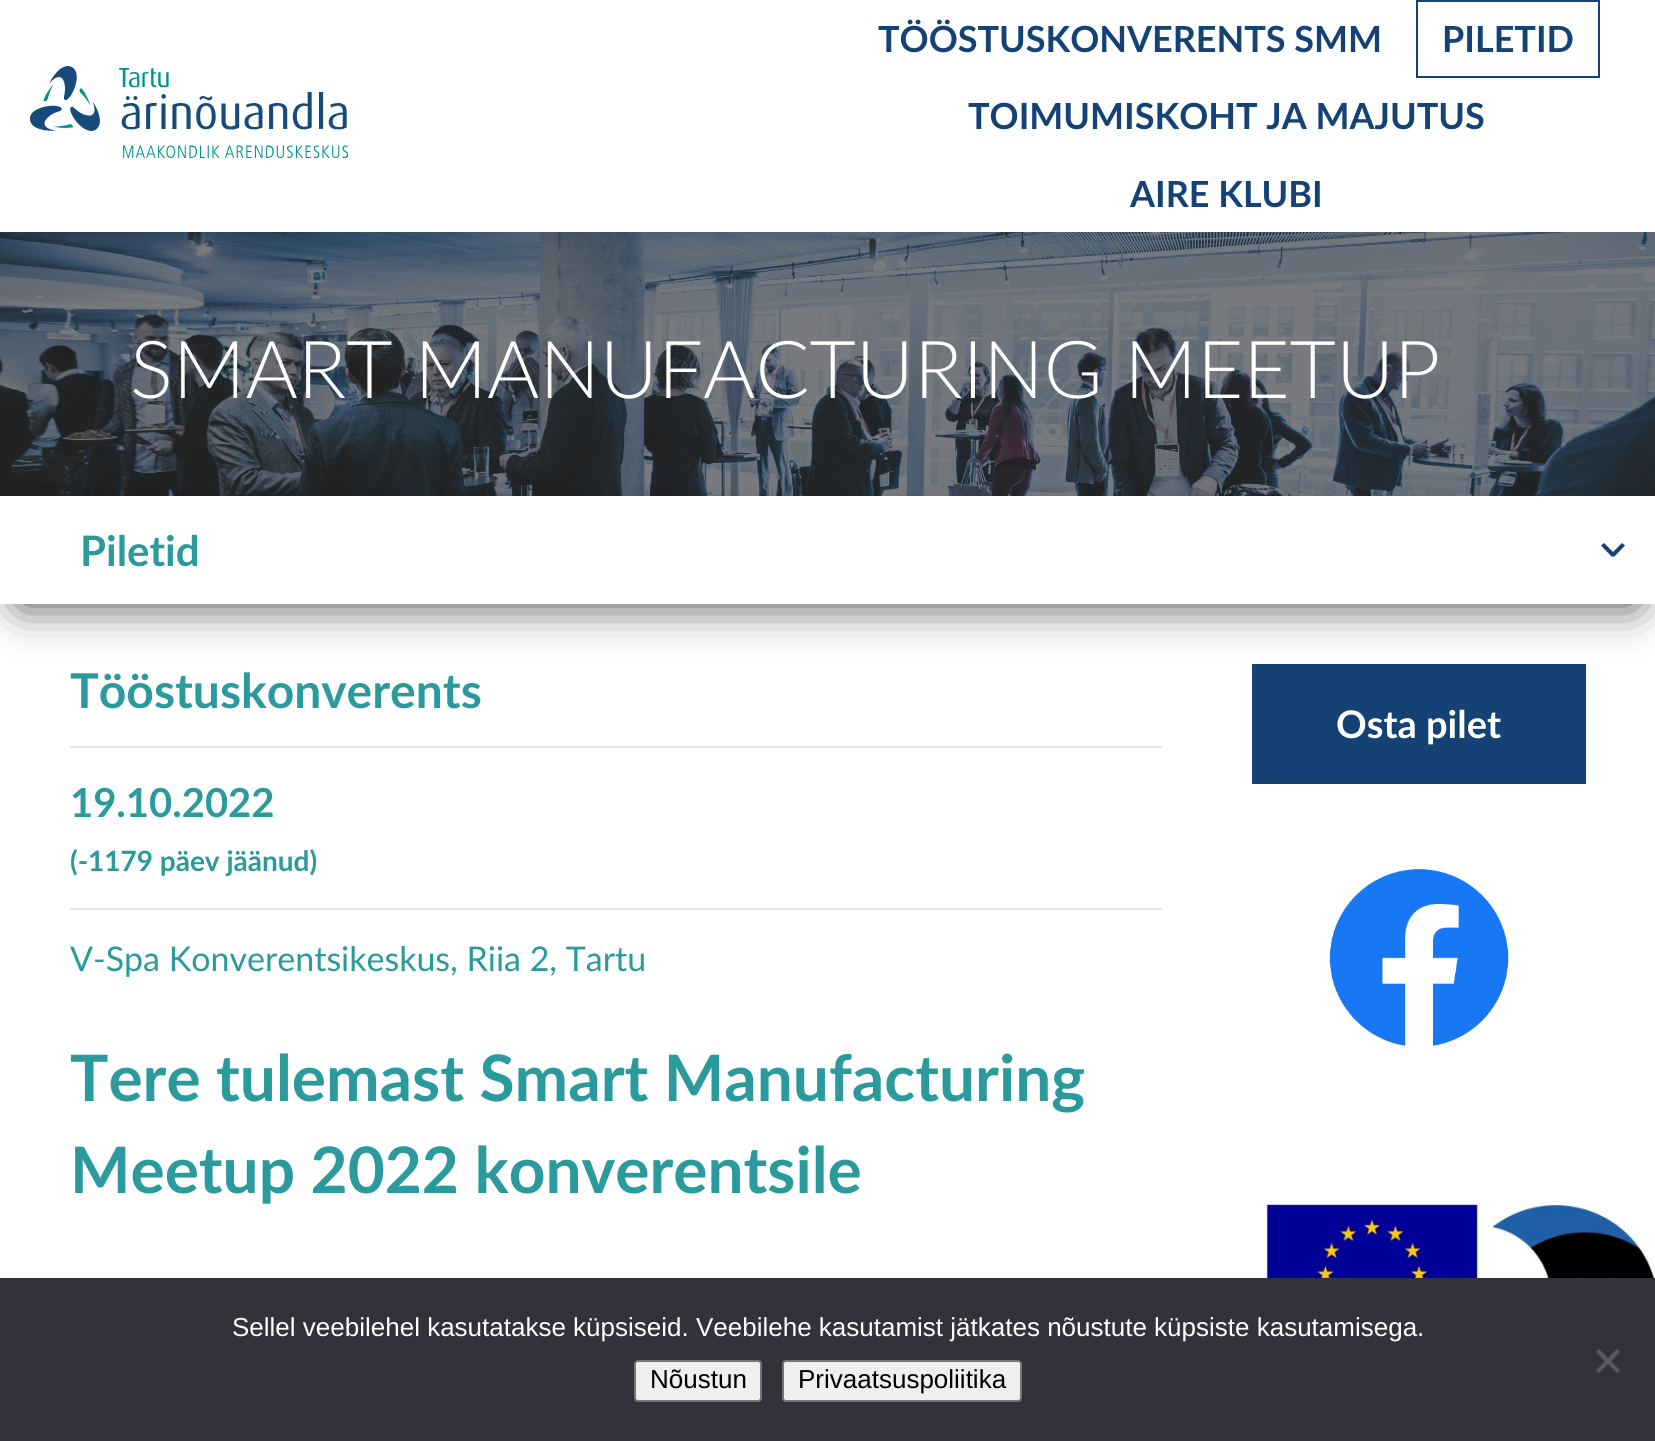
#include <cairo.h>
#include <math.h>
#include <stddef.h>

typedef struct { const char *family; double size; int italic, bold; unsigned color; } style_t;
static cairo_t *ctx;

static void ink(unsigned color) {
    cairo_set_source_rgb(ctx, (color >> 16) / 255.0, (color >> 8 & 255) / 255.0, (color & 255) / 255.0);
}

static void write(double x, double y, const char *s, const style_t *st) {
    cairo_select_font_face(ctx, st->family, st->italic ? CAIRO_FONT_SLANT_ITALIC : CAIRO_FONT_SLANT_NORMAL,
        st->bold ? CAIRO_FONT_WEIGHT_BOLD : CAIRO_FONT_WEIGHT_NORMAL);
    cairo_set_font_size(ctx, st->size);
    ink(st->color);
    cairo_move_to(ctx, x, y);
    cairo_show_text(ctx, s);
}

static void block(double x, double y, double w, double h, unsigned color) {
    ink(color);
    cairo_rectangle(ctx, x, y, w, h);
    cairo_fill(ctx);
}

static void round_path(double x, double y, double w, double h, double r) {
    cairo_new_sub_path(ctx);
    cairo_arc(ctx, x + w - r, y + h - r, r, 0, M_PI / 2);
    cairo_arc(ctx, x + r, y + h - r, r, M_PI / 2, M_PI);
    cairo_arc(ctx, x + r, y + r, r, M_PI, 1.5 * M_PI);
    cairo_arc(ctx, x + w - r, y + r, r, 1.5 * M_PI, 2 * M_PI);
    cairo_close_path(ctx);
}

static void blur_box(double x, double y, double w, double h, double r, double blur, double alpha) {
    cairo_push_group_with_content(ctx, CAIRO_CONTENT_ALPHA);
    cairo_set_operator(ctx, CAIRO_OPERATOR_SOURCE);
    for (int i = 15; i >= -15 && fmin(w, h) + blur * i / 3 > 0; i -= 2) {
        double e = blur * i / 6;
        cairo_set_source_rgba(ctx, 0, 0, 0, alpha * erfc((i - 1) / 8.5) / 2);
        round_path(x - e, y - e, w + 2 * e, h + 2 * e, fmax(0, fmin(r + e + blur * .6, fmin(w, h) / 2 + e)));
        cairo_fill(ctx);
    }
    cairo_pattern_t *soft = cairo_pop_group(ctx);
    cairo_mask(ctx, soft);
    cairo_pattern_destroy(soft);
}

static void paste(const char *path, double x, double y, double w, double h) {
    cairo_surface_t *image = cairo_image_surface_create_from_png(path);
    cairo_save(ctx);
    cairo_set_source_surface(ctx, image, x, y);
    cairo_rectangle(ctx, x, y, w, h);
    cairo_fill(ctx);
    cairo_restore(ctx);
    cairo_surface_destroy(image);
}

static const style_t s1 = {"Lato", 36, 0, 1, 0x154275};
static const style_t s2 = {"Lato Light", 80, 0, 0, 0xffffff};
static const style_t s3 = {"Lato", 42, 0, 1, 0x2b9a9d};
static const style_t s4 = {"Lato", 48, 0, 1, 0x2b9a9d};
static const style_t s5 = {"Lato", 40, 0, 1, 0x2b9a9d};
static const style_t s6 = {"Lato", 28, 0, 1, 0x2b9a9d};
static const style_t s7 = {"Lato", 34, 0, 0, 0x2b9a9d};
static const style_t s8 = {"Lato", 64, 0, 1, 0x2b9a9d};
static const style_t s9 = {"Lato", 38, 0, 1, 0xffffff};
static const style_t s10 = {"Liberation Sans", 26, 0, 0, 0xffffff};
static const style_t s11 = {"Liberation Sans", 26, 0, 0, 0x000000};

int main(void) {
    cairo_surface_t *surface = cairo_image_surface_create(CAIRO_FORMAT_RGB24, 1655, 1441);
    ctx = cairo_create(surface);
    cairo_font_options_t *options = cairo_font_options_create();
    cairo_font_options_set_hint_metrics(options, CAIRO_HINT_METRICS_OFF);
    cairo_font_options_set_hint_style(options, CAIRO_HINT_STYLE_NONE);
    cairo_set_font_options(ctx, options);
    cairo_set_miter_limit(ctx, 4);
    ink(0xffffff);
    cairo_paint(ctx);
    paste("pic1.png", 30, 66, 319, 92);
    write(878, 52, "TÖÖSTUSKONVERENTS SMM", &s1);
    cairo_rectangle(ctx, 1417, 1, 182, 76);
    cairo_stroke(ctx);
    write(1442, 52, "PILETID", &s1);
    write(968, 129, "TOIMUMISKOHT JA MAJUTUS", &s1);
    write(1130, 207, "AIRE KLUBI", &s1);
    paste("pic2.png", 0, 232, 1655, 264);
    write(130, 398, "SMART MANUFACTURING MEETUP", &s2);
    block(1252, 664, 334, 120, 0x154275);
    ink(0x000000);
    blur_box(20, 536, 1616, 68, 0, 23, 0.75);
    block(0, 496, 1655, 108, 0xffffff);
    write(80, 566, "Piletid", &s3);
    ink(0x154275);
    cairo_new_path(ctx);
    cairo_move_to(ctx, 1622, 543);
    cairo_line_to(ctx, 1625, 545.5);
    cairo_line_to(ctx, 1614, 557);
    cairo_line_to(ctx, 1611, 554);
    cairo_close_path(ctx);
    cairo_fill(ctx);
    cairo_new_path(ctx);
    cairo_move_to(ctx, 1601, 545.5);
    cairo_line_to(ctx, 1604, 543);
    cairo_line_to(ctx, 1615, 554);
    cairo_line_to(ctx, 1612, 557);
    cairo_close_path(ctx);
    cairo_fill(ctx);
    write(70, 708, "Tööstuskonverents", &s4);
    block(70, 746, 1092, 2, 0xe4e4e4);
    block(70, 908, 1092, 2, 0xe4e4e4);
    write(70, 817, "19.10.2022", &s5);
    write(70, 871, "(-1179 päev jäänud)", &s6);
    write(70, 971, "V-Spa Konverentsikeskus, Riia 2, Tartu", &s7);
    write(70, 1101, "Tere tulemast Smart Manufacturing", &s8);
    write(70, 1193, "Meetup 2022 konverentsile", &s8);
    write(1336, 738, "Osta pilet", &s9);
    paste("pic3.png", 1329, 868, 180, 179);
    paste("pic4.png", 1265, 1203, 390, 75);
    block(0, 1278, 1655, 163, 0x32323a);
    write(232, 1336, "Sellel veebilehel kasutatakse küpsiseid. Veebilehe kasutamist jätkates nõustute küpsiste kasutamisega.", &s10);
    ink(0x59595d);
    cairo_new_path(ctx);
    cairo_move_to(ctx, 1617, 1349);
    cairo_line_to(ctx, 1620, 1352);
    cairo_line_to(ctx, 1599, 1373);
    cairo_line_to(ctx, 1596, 1370.5);
    cairo_close_path(ctx);
    cairo_fill(ctx);
    cairo_new_path(ctx);
    cairo_move_to(ctx, 1596, 1352);
    cairo_line_to(ctx, 1599, 1349);
    cairo_line_to(ctx, 1620, 1370.5);
    cairo_line_to(ctx, 1617, 1373);
    cairo_close_path(ctx);
    cairo_fill(ctx);
    ink(0xefefef);
    round_path(635, 1361, 126, 40, 3);
    cairo_fill_preserve(ctx);
    ink(0x767676);
    cairo_stroke(ctx);
    write(650, 1388, "Nõustun", &s11);
    ink(0xefefef);
    round_path(783, 1361, 238, 40, 3);
    cairo_fill_preserve(ctx);
    ink(0x767676);
    cairo_stroke(ctx);
    write(798, 1388, "Privaatsuspoliitika", &s11);
    cairo_surface_write_to_png(surface, "screenshot.png");
    cairo_font_options_destroy(options);
    cairo_destroy(ctx);
    cairo_surface_destroy(surface);
    return 0;
}
